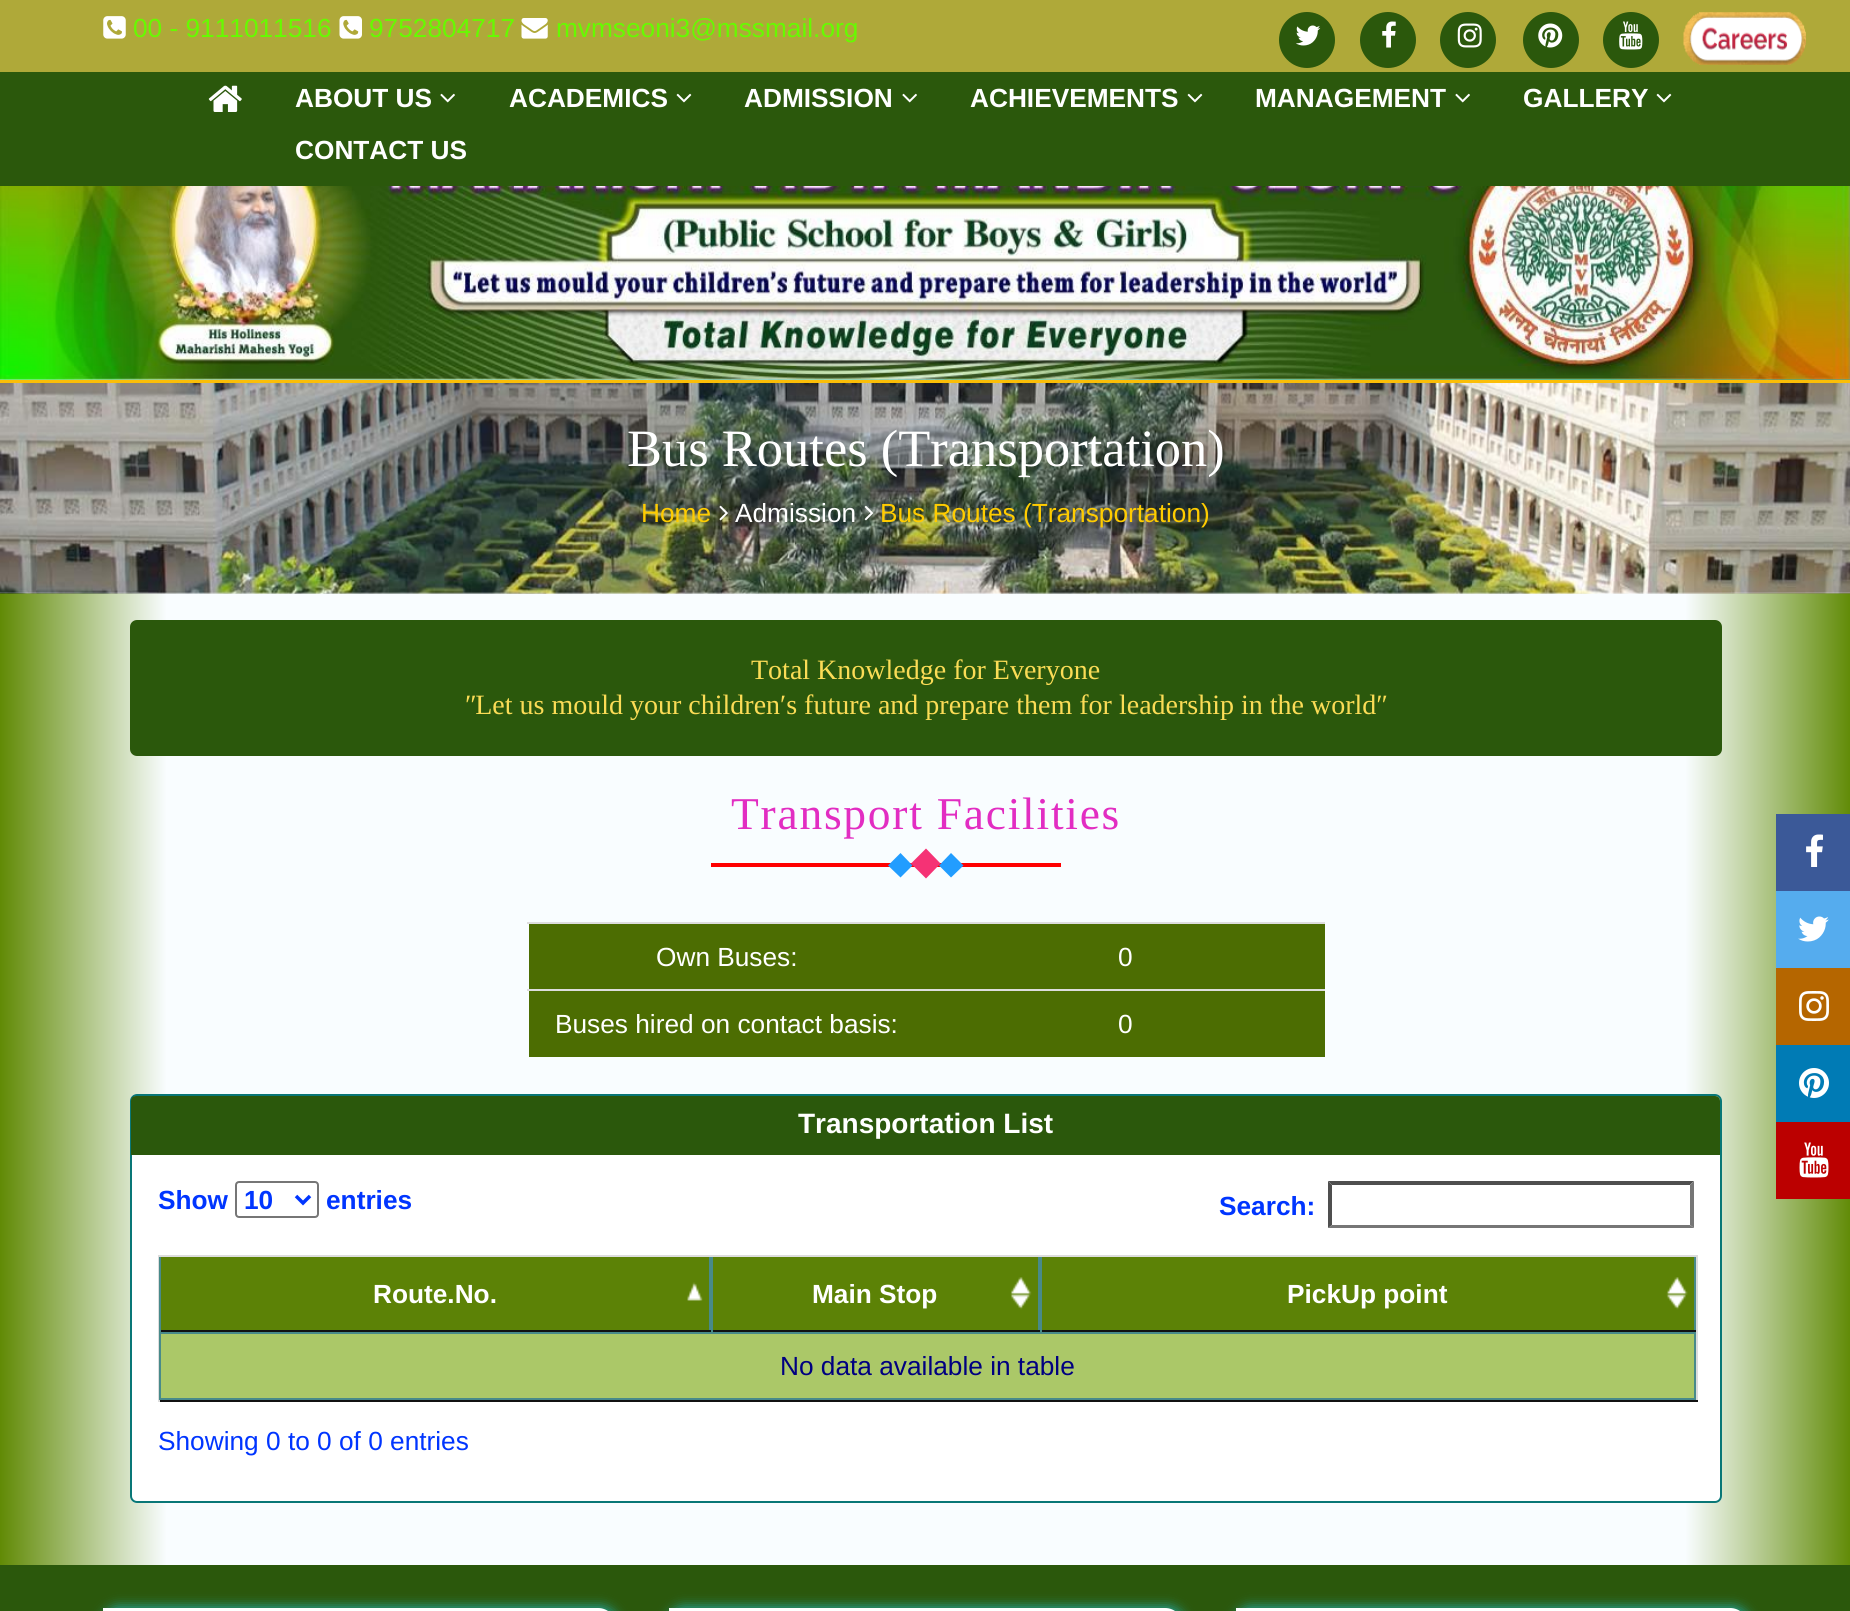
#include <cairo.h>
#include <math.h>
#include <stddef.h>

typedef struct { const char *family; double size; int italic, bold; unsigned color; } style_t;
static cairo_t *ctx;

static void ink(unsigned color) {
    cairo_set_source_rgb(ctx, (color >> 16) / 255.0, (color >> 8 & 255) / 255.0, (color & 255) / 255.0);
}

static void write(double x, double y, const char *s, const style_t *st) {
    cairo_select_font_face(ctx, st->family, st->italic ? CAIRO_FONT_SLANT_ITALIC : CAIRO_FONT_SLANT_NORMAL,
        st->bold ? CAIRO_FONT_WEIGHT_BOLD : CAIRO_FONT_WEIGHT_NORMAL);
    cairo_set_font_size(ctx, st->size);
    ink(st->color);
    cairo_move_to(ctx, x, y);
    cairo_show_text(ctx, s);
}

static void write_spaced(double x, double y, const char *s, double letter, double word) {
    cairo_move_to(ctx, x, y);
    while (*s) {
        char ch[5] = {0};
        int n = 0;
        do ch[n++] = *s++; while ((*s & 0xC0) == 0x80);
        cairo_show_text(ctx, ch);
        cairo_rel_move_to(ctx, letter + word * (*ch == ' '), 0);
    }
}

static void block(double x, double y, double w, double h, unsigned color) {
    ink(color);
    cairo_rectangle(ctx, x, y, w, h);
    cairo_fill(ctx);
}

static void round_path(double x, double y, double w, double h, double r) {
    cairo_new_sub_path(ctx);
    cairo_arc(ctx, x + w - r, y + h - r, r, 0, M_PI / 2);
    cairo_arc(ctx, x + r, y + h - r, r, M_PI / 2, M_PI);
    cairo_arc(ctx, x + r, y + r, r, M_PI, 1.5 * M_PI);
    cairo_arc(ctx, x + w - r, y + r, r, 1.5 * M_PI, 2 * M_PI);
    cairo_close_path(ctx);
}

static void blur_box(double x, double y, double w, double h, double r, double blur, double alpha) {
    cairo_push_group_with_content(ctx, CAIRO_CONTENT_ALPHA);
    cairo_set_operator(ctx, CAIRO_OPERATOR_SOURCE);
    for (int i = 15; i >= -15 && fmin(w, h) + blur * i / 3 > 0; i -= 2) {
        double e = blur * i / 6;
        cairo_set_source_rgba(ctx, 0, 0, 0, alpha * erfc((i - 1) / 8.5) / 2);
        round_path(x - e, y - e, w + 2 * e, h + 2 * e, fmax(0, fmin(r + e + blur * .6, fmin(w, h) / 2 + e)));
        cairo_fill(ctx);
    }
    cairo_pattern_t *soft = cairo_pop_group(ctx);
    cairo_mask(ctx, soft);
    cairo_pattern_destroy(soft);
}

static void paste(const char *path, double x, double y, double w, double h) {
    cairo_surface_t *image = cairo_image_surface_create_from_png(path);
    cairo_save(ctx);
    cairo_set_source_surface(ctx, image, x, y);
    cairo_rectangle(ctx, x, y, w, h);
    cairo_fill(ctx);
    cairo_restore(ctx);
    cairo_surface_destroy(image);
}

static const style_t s1 = {"Liberation Sans", 26.25, 0, 0, 0x66fb00};
static const style_t s2 = {"Liberation Sans", 26.25, 0, 1, 0xffffff};
static const style_t s3 = {"Liberation Serif", 52.5, 0, 0, 0xffffff};
static const style_t s4 = {"Liberation Sans", 26.25, 0, 0, 0xffcc00};
static const style_t s5 = {"Liberation Sans", 26.25, 0, 0, 0xffffff};
static const style_t s6 = {"Liberation Serif", 28, 0, 0, 0xfbdc56};
static const style_t s7 = {"Liberation Sans", 28, 0, 1, 0xffffff};
static const style_t s8 = {"Liberation Sans", 26.25, 0, 1, 0x0035ff};
static const style_t s9 = {"Liberation Sans", 26.25, 0, 0, 0x000080};
static const style_t s10 = {"Liberation Sans", 26.25, 0, 0, 0x0035ff};

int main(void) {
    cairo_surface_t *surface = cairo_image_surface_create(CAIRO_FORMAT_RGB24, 1850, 1611);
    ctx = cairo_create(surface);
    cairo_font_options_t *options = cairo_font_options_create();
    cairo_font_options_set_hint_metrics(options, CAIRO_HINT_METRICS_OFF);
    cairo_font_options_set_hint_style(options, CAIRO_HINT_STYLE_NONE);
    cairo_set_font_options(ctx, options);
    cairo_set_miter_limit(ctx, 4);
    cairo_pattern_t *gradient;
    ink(0xffffff);
    cairo_paint(ctx);
    block(0, 0, 1850, 72, 0xafa939);
    paste("pic1.png", 103, 16, 23, 23);
    write(133, 37, "00 - 9111011516", &s1);
    paste("pic2.png", 339, 16, 23, 23);
    write(369, 37, "9752804717", &s1);
    paste("pic3.png", 521, 18, 27, 21);
    write(556, 37, "mvmseoni3@mssmail.org", &s1);
    ink(0x2b580c);
    cairo_new_path(ctx);
    cairo_arc(ctx, 1307, 40, 28, 0, 2 * M_PI);
    cairo_fill(ctx);
    paste("pic4.png", 1296, 25, 25, 21);
    cairo_arc(ctx, 1388, 40, 28, 0, 2 * M_PI);
    cairo_fill(ctx);
    paste("pic5.png", 1382, 21, 14, 27);
    cairo_arc(ctx, 1468, 40, 28, 0, 2 * M_PI);
    cairo_fill(ctx);
    paste("pic6.png", 1457, 23, 25, 25);
    cairo_arc(ctx, 1551, 40, 28, 0, 2 * M_PI);
    cairo_fill(ctx);
    paste("pic7.png", 1538, 23, 25, 25);
    cairo_arc(ctx, 1631, 40, 28, 0, 2 * M_PI);
    cairo_fill(ctx);
    paste("pic8.png", 1619, 21, 24, 29);
    paste("pic9.png", 1683, 12, 123, 53);
    block(0, 72, 1850, 114, 0x2b580c);
    paste("pic10.png", 208, 85, 34, 27);
    write(295, 107, "ABOUT US", &s2);
    paste("pic11.png", 440, 93, 15, 10);
    write(509, 107, "ACADEMICS", &s2);
    paste("pic12.png", 676, 93, 16, 10);
    write(744, 107, "ADMISSION", &s2);
    paste("pic11.png", 902, 93, 15, 10);
    write(970, 107, "ACHIEVEMENTS", &s2);
    paste("pic12.png", 1187, 93, 16, 10);
    write(1255, 107, "MANAGEMENT", &s2);
    paste("pic11.png", 1455, 93, 15, 10);
    write(1523, 107, "GALLERY", &s2);
    paste("pic12.png", 1656, 93, 16, 10);
    write(295, 159, "CONTACT US", &s2);
    gradient = cairo_pattern_create_linear(0, 190, 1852, 190);
    cairo_pattern_add_color_stop_rgba(gradient, 0, 0.271, 0.706, 0.741, 1);
    cairo_pattern_add_color_stop_rgba(gradient, 0, 0.757, 0.922, 0.894, 1);
    cairo_pattern_add_color_stop_rgba(gradient, 0.09, 0.714, 0.91, 0.886, 1);
    cairo_pattern_add_color_stop_rgba(gradient, 0.91, 0.063, 0.737, 0.698, 1);
    cairo_pattern_add_color_stop_rgba(gradient, 1, 0.063, 0.706, 0.765, 1);
    cairo_set_source(ctx, gradient);
    cairo_pattern_destroy(gradient);
    cairo_rectangle(ctx, 0, 379, 1850, 1);
    cairo_fill(ctx);
    block(0, 380, 1850, 3, 0xfbbe07);
    paste("pic13.png", 0, 186, 1850, 194);
    gradient = cairo_pattern_create_linear(0, 1079, 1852, 1079);
    cairo_pattern_add_color_stop_rgba(gradient, 0, 0.231, 0.533, 0.024, 1);
    cairo_pattern_add_color_stop_rgba(gradient, 0, 0.38, 0.541, 0.02, 1);
    cairo_pattern_add_color_stop_rgba(gradient, 0.09, 0.976, 0.992, 1, 1);
    cairo_pattern_add_color_stop_rgba(gradient, 0.91, 0.976, 0.992, 1, 1);
    cairo_pattern_add_color_stop_rgba(gradient, 1, 0.376, 0.541, 0.02, 1);
    cairo_set_source(ctx, gradient);
    cairo_pattern_destroy(gradient);
    cairo_rectangle(ctx, 0, 593, 1850, 972);
    cairo_fill(ctx);
    paste("pic14.png", 0, 383, 1850, 211);
    write(627, 466, "Bus Routes (Transportation)", &s3);
    write(641, 522, "Home", &s4);
    paste("pic15.png", 719, 505, 9, 16);
    write(735, 522, "Admission", &s5);
    paste("pic16.png", 864, 505, 10, 16);
    write(880, 522, "Bus Routes (Transportation)", &s4);
    ink(0x2b580c);
    round_path(130, 620, 1592, 136, 7);
    cairo_fill(ctx);
    write(751, 679, "Total Knowledge for Everyone", &s6);
    write(465, 714, "ʺLet us mould your children′s future and prepare them for leadership in the worldʺ", &s6);
    cairo_set_font_size(ctx, 45.5);
    ink(0xe22dc2);
    write_spaced(731, 829, "Transport Facilities", 1.75, 0);
    block(711, 863, 350, 4, 0xff0000);
    ink(0x229dff);
    cairo_new_path(ctx);
    cairo_move_to(ctx, 900.5, 853);
    cairo_line_to(ctx, 912.5, 865.5);
    cairo_line_to(ctx, 900.5, 877.5);
    cairo_line_to(ctx, 888, 865.5);
    cairo_close_path(ctx);
    cairo_fill(ctx);
    ink(0xf53275);
    cairo_new_path(ctx);
    cairo_move_to(ctx, 926, 848.5);
    cairo_line_to(ctx, 940.5, 863.5);
    cairo_line_to(ctx, 926, 878.5);
    cairo_line_to(ctx, 911, 863.5);
    cairo_close_path(ctx);
    cairo_fill(ctx);
    ink(0x229dff);
    cairo_new_path(ctx);
    cairo_move_to(ctx, 951, 853);
    cairo_line_to(ctx, 963.5, 865.5);
    cairo_line_to(ctx, 951, 877.5);
    cairo_line_to(ctx, 939, 865.5);
    cairo_close_path(ctx);
    cairo_fill(ctx);
    block(529, 924, 796, 133, 0x4c6d02);
    write(656, 966, "Own Buses:", &s5);
    block(527, 922, 798, 2, 0xdddddd);
    write(1118, 966, "0", &s5);
    write(555, 1033, "Buses hired on contact basis:", &s5);
    block(527, 989, 798, 2, 0xdddddd);
    write(1118, 1033, "0", &s5);
    round_path(130, 1094, 1592, 409, 7);
    cairo_fill(ctx);
    block(161, 1334, 1533, 64, 0xabc868);
    round_path(131, 1095, 1590, 407, 6);
    ink(0x097777);
    cairo_stroke(ctx);
    ink(0x2b580c);
    cairo_new_path(ctx);
    cairo_move_to(ctx, 136, 1096);
    cairo_line_to(ctx, 1715, 1096);
    cairo_curve_to(ctx, 1718, 1096, 1720, 1098, 1720, 1101);
    cairo_line_to(ctx, 1720, 1155);
    cairo_line_to(ctx, 131, 1155);
    cairo_line_to(ctx, 131, 1101);
    cairo_curve_to(ctx, 131, 1098, 133, 1096, 136, 1096);
    cairo_close_path(ctx);
    cairo_fill(ctx);
    write(798, 1133, "Transportation List", &s7);
    write(158, 1209, "Show", &s8);
    round_path(236, 1182, 82, 35, 3);
    ink(0x767676);
    cairo_stroke(ctx);
    cairo_new_path(ctx);
    cairo_move_to(ctx, 296, 1196);
    cairo_line_to(ctx, 303, 1203);
    cairo_line_to(ctx, 310, 1196);
    ink(0x0035ff);
    cairo_set_line_width(ctx, 3.5);
    cairo_stroke(ctx);
    write(244, 1209, "10", &s8);
    write(326, 1209, "entries", &s8);
    write(1219, 1215, "Search:", &s8);
    ink(0x4f4f4f);
    cairo_new_path(ctx);
    cairo_move_to(ctx, 1328, 1181);
    cairo_line_to(ctx, 1694, 1181);
    cairo_line_to(ctx, 1690, 1185);
    cairo_line_to(ctx, 1332, 1185);
    cairo_close_path(ctx);
    cairo_fill(ctx);
    ink(0x767676);
    cairo_new_path(ctx);
    cairo_move_to(ctx, 1694, 1181);
    cairo_line_to(ctx, 1694, 1228);
    cairo_line_to(ctx, 1690, 1225);
    cairo_line_to(ctx, 1690, 1185);
    cairo_close_path(ctx);
    cairo_fill(ctx);
    cairo_new_path(ctx);
    cairo_move_to(ctx, 1694, 1228);
    cairo_line_to(ctx, 1328, 1228);
    cairo_line_to(ctx, 1332, 1225);
    cairo_line_to(ctx, 1690, 1225);
    cairo_close_path(ctx);
    cairo_fill(ctx);
    ink(0x4f4f4f);
    cairo_new_path(ctx);
    cairo_move_to(ctx, 1328, 1228);
    cairo_line_to(ctx, 1328, 1181);
    cairo_line_to(ctx, 1332, 1185);
    cairo_line_to(ctx, 1332, 1225);
    cairo_close_path(ctx);
    cairo_fill(ctx);
    block(158, 1255, 1540, 2, 0xdddddd);
    block(1696, 1255, 2, 147, 0xdddddd);
    block(158, 1400, 1540, 2, 0x111111);
    block(158, 1255, 2, 147, 0xdddddd);
    block(161, 1257, 548, 73, 0x5c8206);
    paste("pic17.png", 687, 1282, 16, 19);
    block(709, 1257, 2, 75, 0x488a8a);
    block(159, 1330, 552, 2, 0x111111);
    block(159, 1257, 2, 75, 0x488a8a);
    write(373, 1303, "Route.No.", &s2);
    block(713, 1257, 325, 73, 0x5c8206);
    paste("pic18.png", 1010, 1277, 22, 33);
    block(1038, 1257, 2, 75, 0x488a8a);
    block(711, 1330, 329, 2, 0x111111);
    block(711, 1257, 2, 75, 0x488a8a);
    write(812, 1303, "Main Stop", &s2);
    block(1042, 1257, 652, 73, 0x5c8206);
    paste("pic19.png", 1666, 1277, 22, 33);
    block(1694, 1257, 2, 75, 0x488a8a);
    block(1040, 1330, 656, 2, 0x111111);
    block(1040, 1257, 2, 75, 0x488a8a);
    write(1287, 1303, "PickUp point", &s2);
    cairo_rectangle(ctx, 160, 1333, 1535, 66);
    ink(0x488a8a);
    cairo_set_line_width(ctx, 2);
    cairo_stroke(ctx);
    write(780, 1375, "No data available in table", &s9);
    write(158, 1450, "Showing 0 to 0 of 0 entries", &s10);
    block(1776, 814, 74, 77, 0x3b5998);
    paste("pic20.png", 1806, 834, 17, 33);
    block(1776, 891, 74, 77, 0x55acee);
    paste("pic21.png", 1798, 916, 31, 26);
    block(1776, 968, 74, 77, 0xb56600);
    paste("pic22.png", 1799, 991, 30, 30);
    block(1776, 1045, 74, 77, 0x007bb5);
    paste("pic23.png", 1799, 1068, 30, 30);
    block(1776, 1122, 74, 77, 0xbb0000);
    paste("pic24.png", 1799, 1142, 30, 36);
    block(0, 1565, 1850, 46, 0x2b580c);
    ink(0x23abab);
    blur_box(102, 1607, 516, 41, 19, 6, 1);
    ink(0xffffff);
    cairo_new_path(ctx);
    cairo_move_to(ctx, 103, 1608);
    cairo_line_to(ctx, 598, 1608);
    cairo_curve_to(ctx, 608, 1608, 616, 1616, 616, 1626);
    cairo_line_to(ctx, 616, 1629);
    cairo_line_to(ctx, 121, 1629);
    cairo_curve_to(ctx, 111, 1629, 103, 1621, 103, 1611);
    cairo_close_path(ctx);
    cairo_fill(ctx);
    ink(0x23abab);
    blur_box(667, 1607, 518, 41, 19, 6, 1);
    ink(0xffffff);
    cairo_new_path(ctx);
    cairo_move_to(ctx, 669, 1608);
    cairo_line_to(ctx, 1165, 1608);
    cairo_curve_to(ctx, 1175, 1608, 1183, 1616, 1183, 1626);
    cairo_line_to(ctx, 1183, 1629);
    cairo_line_to(ctx, 687, 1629);
    cairo_curve_to(ctx, 677, 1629, 669, 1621, 669, 1611);
    cairo_close_path(ctx);
    cairo_fill(ctx);
    ink(0x23abab);
    blur_box(1234, 1607, 516, 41, 19, 6, 1);
    ink(0xffffff);
    cairo_new_path(ctx);
    cairo_move_to(ctx, 1236, 1608);
    cairo_line_to(ctx, 1730, 1608);
    cairo_curve_to(ctx, 1740, 1608, 1748, 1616, 1748, 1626);
    cairo_line_to(ctx, 1748, 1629);
    cairo_line_to(ctx, 1254, 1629);
    cairo_curve_to(ctx, 1244, 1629, 1236, 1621, 1236, 1611);
    cairo_close_path(ctx);
    cairo_fill(ctx);
    cairo_surface_write_to_png(surface, "screenshot.png");
    cairo_font_options_destroy(options);
    cairo_destroy(ctx);
    cairo_surface_destroy(surface);
    return 0;
}
